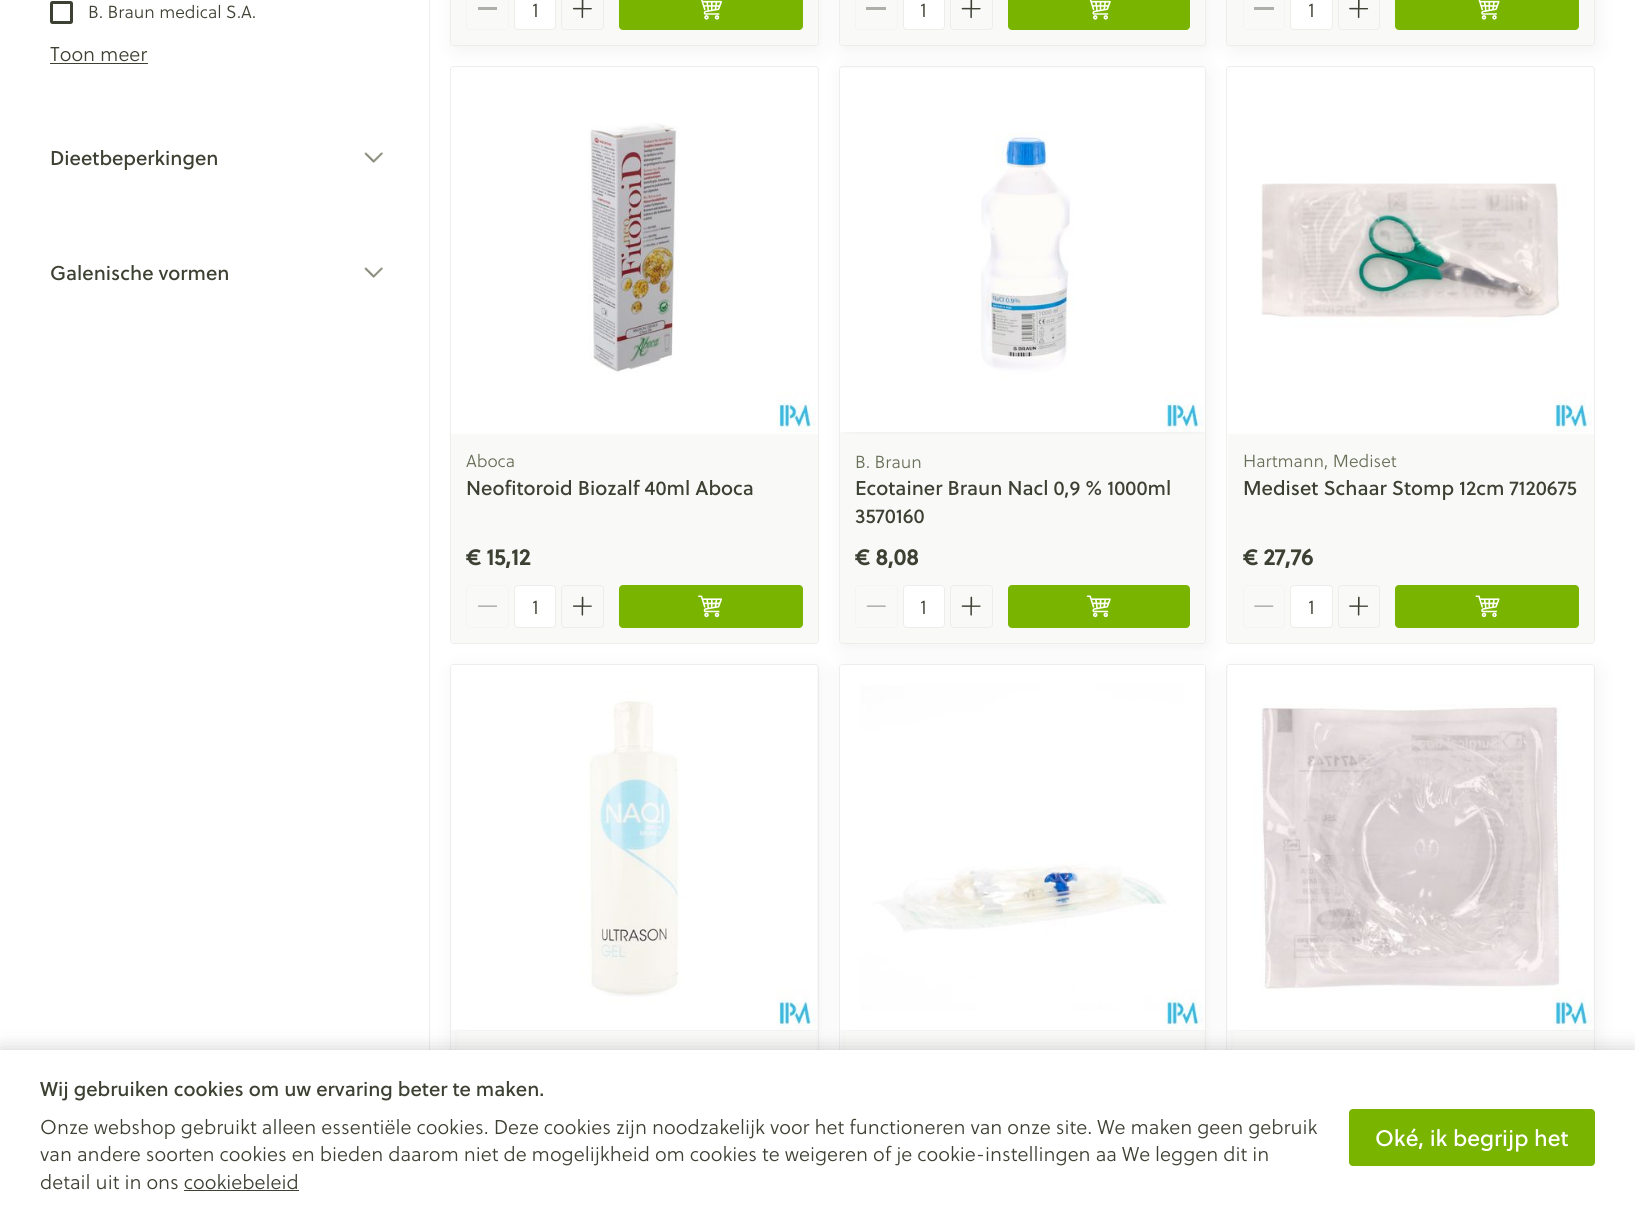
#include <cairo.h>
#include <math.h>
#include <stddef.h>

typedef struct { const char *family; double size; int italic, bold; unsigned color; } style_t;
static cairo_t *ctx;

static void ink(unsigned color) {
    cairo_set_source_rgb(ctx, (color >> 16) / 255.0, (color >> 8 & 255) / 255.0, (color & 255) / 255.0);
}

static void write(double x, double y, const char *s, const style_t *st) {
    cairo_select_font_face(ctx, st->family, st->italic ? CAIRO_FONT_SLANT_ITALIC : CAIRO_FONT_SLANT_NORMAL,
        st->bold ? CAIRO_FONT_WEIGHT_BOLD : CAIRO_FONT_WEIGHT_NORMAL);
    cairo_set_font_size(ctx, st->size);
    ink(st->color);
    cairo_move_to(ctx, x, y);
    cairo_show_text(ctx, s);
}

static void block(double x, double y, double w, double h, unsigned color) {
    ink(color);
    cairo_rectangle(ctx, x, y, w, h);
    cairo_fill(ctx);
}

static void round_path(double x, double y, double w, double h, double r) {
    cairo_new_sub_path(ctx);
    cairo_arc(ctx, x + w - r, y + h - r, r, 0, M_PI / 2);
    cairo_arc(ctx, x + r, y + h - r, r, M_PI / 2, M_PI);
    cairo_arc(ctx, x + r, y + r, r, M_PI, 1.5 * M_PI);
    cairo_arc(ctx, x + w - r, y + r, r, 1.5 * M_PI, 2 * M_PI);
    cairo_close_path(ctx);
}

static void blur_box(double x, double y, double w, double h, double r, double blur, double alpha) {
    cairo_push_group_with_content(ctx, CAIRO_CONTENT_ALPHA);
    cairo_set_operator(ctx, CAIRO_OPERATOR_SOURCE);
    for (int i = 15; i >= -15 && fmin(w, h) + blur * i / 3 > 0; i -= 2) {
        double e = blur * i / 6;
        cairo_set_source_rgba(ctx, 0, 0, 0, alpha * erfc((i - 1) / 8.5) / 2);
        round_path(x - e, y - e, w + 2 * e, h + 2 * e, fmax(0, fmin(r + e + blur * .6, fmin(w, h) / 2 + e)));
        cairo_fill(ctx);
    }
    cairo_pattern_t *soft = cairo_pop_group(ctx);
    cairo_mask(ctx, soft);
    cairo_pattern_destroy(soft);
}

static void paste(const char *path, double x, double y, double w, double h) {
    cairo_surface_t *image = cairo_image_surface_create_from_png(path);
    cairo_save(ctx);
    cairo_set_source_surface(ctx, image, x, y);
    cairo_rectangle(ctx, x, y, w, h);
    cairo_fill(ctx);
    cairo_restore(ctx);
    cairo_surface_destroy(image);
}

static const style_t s1 = {"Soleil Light", 17.5, 0, 0, 0x3d4133};
static const style_t s2 = {"Soleil Light", 20, 0, 0, 0x3d4133};
static const style_t s3 = {"Soleil", 20, 0, 0, 0x3d4133};
static const style_t s4 = {"Soleil Light", 17.5, 0, 0, 0x686f57};
static const style_t s5 = {"Soleil", 22.5, 0, 1, 0x3d4133};
static const style_t s6 = {"Soleil", 22.5, 0, 0, 0xffffff};

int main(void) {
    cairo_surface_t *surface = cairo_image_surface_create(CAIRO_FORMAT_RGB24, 1635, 1224);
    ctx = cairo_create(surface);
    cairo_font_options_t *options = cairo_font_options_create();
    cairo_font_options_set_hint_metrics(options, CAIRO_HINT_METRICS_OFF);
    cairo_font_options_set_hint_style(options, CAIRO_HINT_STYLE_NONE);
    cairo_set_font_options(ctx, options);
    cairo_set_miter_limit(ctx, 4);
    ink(0xffffff);
    cairo_paint(ctx);
    round_path(51.5, 2.5, 20, 20, 1);
    ink(0x3d4133);
    cairo_set_line_width(ctx, 3);
    cairo_stroke(ctx);
    write(88, 18, "B. Braun medical S.A.", &s1);
    write(50, 61, "Toon meer", &s2);
    block(50, 63, 98, 1, 0x3d4133);
    write(50, 165, "Dieetbeperkingen", &s3);
    paste("pic1.png", 364, 152, 19, 11);
    write(50, 280, "Galenische vormen", &s3);
    paste("pic1.png", 364, 267, 19, 11);
    block(429, 0, 1, 1050, 0xedeeeb);
    ink(0x000000);
    blur_box(453, -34, 368, 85, 4, 10, 0.05);
    round_path(450.5, -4.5, 368, 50, 3.5);
    ink(0xedeeeb);
    cairo_set_line_width(ctx, 1);
    cairo_stroke(ctx);
    ink(0xf9f9f8);
    cairo_new_path(ctx);
    cairo_move_to(ctx, 451, -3);
    cairo_line_to(ctx, 818, -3);
    cairo_line_to(ctx, 818, 42.5);
    cairo_curve_to(ctx, 818, 44, 817, 45, 815.5, 45);
    cairo_line_to(ctx, 453.5, 45);
    cairo_curve_to(ctx, 452, 45, 451, 44, 451, 42.5);
    cairo_close_path(ctx);
    cairo_fill(ctx);
    round_path(466.5, -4.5, 42, 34, 3.5);
    ink(0xf4f5f3);
    cairo_stroke(ctx);
    block(478, 7, 19, 3, 0xaeafa9);
    ink(0xffffff);
    round_path(514.5, -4.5, 41, 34, 3.5);
    cairo_fill_preserve(ctx);
    ink(0xedeeeb);
    cairo_stroke(ctx);
    write(532, 17, "1", &s2);
    round_path(561.5, -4.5, 42, 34, 3.5);
    ink(0xedeeeb);
    cairo_stroke(ctx);
    paste("pic2.png", 572, 0, 20, 19);
    ink(0x79b401);
    round_path(619.5, -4.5, 183, 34, 3.5);
    cairo_fill_preserve(ctx);
    cairo_stroke(ctx);
    paste("pic3.png", 701, 0, 21, 20);
    ink(0x000000);
    blur_box(841, -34, 368, 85, 4, 10, 0.05);
    round_path(839.5, -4.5, 366, 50, 3.5);
    ink(0xedeeeb);
    cairo_stroke(ctx);
    ink(0xf9f9f8);
    cairo_new_path(ctx);
    cairo_move_to(ctx, 840, -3);
    cairo_line_to(ctx, 1205, -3);
    cairo_line_to(ctx, 1205, 42.5);
    cairo_curve_to(ctx, 1205, 44, 1204, 45, 1202.5, 45);
    cairo_line_to(ctx, 842.5, 45);
    cairo_curve_to(ctx, 841, 45, 840, 44, 840, 42.5);
    cairo_close_path(ctx);
    cairo_fill(ctx);
    round_path(855.5, -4.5, 42, 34, 3.5);
    ink(0xf4f5f3);
    cairo_stroke(ctx);
    block(866, 7, 20, 3, 0xaeafa9);
    ink(0xffffff);
    round_path(903.5, -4.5, 41, 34, 3.5);
    cairo_fill_preserve(ctx);
    ink(0xedeeeb);
    cairo_stroke(ctx);
    write(920, 17, "1", &s2);
    round_path(950.5, -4.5, 42, 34, 3.5);
    ink(0xedeeeb);
    cairo_stroke(ctx);
    paste("pic4.png", 961, 0, 20, 19);
    ink(0x79b401);
    round_path(1008.5, -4.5, 181, 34, 3.5);
    cairo_fill_preserve(ctx);
    cairo_stroke(ctx);
    paste("pic5.png", 1089, 0, 22, 20);
    ink(0x000000);
    blur_box(1229, -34, 369, 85, 4, 10, 0.05);
    round_path(1226.5, -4.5, 368, 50, 3.5);
    ink(0xedeeeb);
    cairo_stroke(ctx);
    ink(0xf9f9f8);
    cairo_new_path(ctx);
    cairo_move_to(ctx, 1228, -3);
    cairo_line_to(ctx, 1594, -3);
    cairo_line_to(ctx, 1594, 42.5);
    cairo_curve_to(ctx, 1594, 44, 1593, 45, 1591.5, 45);
    cairo_line_to(ctx, 1230.5, 45);
    cairo_curve_to(ctx, 1229, 45, 1228, 44, 1228, 42.5);
    cairo_close_path(ctx);
    cairo_fill(ctx);
    round_path(1243.5, -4.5, 41, 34, 3.5);
    ink(0xf4f5f3);
    cairo_stroke(ctx);
    block(1254, 7, 20, 3, 0xaeafa9);
    ink(0xffffff);
    round_path(1290.5, -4.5, 42, 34, 3.5);
    cairo_fill_preserve(ctx);
    ink(0xedeeeb);
    cairo_stroke(ctx);
    write(1308, 17, "1", &s2);
    round_path(1338.5, -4.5, 41, 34, 3.5);
    ink(0xedeeeb);
    cairo_stroke(ctx);
    paste("pic6.png", 1349, 0, 20, 19);
    ink(0x79b401);
    round_path(1395.5, -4.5, 183, 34, 3.5);
    cairo_fill_preserve(ctx);
    cairo_stroke(ctx);
    paste("pic7.png", 1478, 0, 22, 20);
    round_path(450.5, 66.5, 368, 577, 3.5);
    ink(0xedeeeb);
    cairo_stroke(ctx);
    paste("pic8.png", 588, 123, 228, 309);
    ink(0xf9f9f8);
    cairo_new_path(ctx);
    cairo_move_to(ctx, 451, 434);
    cairo_line_to(ctx, 818, 434);
    cairo_line_to(ctx, 818, 640.5);
    cairo_curve_to(ctx, 818, 642, 817, 643, 815.5, 643);
    cairo_line_to(ctx, 453.5, 643);
    cairo_curve_to(ctx, 452, 643, 451, 642, 451, 640.5);
    cairo_close_path(ctx);
    cairo_fill(ctx);
    write(466, 467, "Aboca", &s4);
    write(466, 495, "Neofitoroid Biozalf 40ml Aboca", &s3);
    write(466, 565, "€ 15,12", &s5);
    round_path(466.5, 585.5, 42, 42, 3.5);
    ink(0xf4f5f3);
    cairo_stroke(ctx);
    paste("pic9.png", 478, 605, 19, 2);
    ink(0xffffff);
    round_path(514.5, 585.5, 41, 42, 3.5);
    cairo_fill_preserve(ctx);
    ink(0xedeeeb);
    cairo_stroke(ctx);
    write(532, 614, "1", &s2);
    round_path(561.5, 585.5, 42, 42, 3.5);
    ink(0xedeeeb);
    cairo_stroke(ctx);
    paste("pic10.png", 572, 596, 20, 20);
    ink(0x79b401);
    round_path(619.5, 585.5, 183, 42, 3.5);
    cairo_fill_preserve(ctx);
    cairo_stroke(ctx);
    paste("pic11.png", 698, 595, 24, 23);
    ink(0x000000);
    blur_box(841, 71, 368, 578, 4, 10, 0.05);
    round_path(839.5, 66.5, 366, 577, 3.5);
    ink(0xedeeeb);
    cairo_stroke(ctx);
    paste("pic12.png", 840, 68, 365, 364);
    ink(0xf9f9f8);
    cairo_new_path(ctx);
    cairo_move_to(ctx, 840, 434);
    cairo_line_to(ctx, 1205, 434);
    cairo_line_to(ctx, 1205, 640.5);
    cairo_curve_to(ctx, 1205, 642, 1204, 643, 1202.5, 643);
    cairo_line_to(ctx, 842.5, 643);
    cairo_curve_to(ctx, 841, 643, 840, 642, 840, 640.5);
    cairo_close_path(ctx);
    cairo_fill(ctx);
    write(855, 468, "B. Braun", &s4);
    write(855, 495, "Ecotainer Braun Nacl 0,9 % 1000ml", &s3);
    write(855, 523, "3570160", &s3);
    write(855, 565, "€ 8,08", &s5);
    round_path(855.5, 585.5, 42, 42, 3.5);
    ink(0xf4f5f3);
    cairo_stroke(ctx);
    paste("pic13.png", 866, 605, 20, 2);
    ink(0xffffff);
    round_path(903.5, 585.5, 41, 42, 3.5);
    cairo_fill_preserve(ctx);
    ink(0xedeeeb);
    cairo_stroke(ctx);
    write(920, 614, "1", &s2);
    round_path(950.5, 585.5, 42, 42, 3.5);
    ink(0xedeeeb);
    cairo_stroke(ctx);
    paste("pic14.png", 961, 596, 20, 20);
    ink(0x79b401);
    round_path(1008.5, 585.5, 181, 42, 3.5);
    cairo_fill_preserve(ctx);
    cairo_stroke(ctx);
    paste("pic15.png", 1086, 595, 25, 23);
    round_path(1226.5, 66.5, 368, 577, 3.5);
    ink(0xedeeeb);
    cairo_stroke(ctx);
    paste("pic16.png", 1260, 183, 333, 249);
    ink(0xf9f9f8);
    cairo_new_path(ctx);
    cairo_move_to(ctx, 1228, 434);
    cairo_line_to(ctx, 1594, 434);
    cairo_line_to(ctx, 1594, 640.5);
    cairo_curve_to(ctx, 1594, 642, 1593, 643, 1591.5, 643);
    cairo_line_to(ctx, 1230.5, 643);
    cairo_curve_to(ctx, 1229, 643, 1228, 642, 1228, 640.5);
    cairo_close_path(ctx);
    cairo_fill(ctx);
    write(1243, 467, "Hartmann, Mediset", &s4);
    write(1243, 495, "Mediset Schaar Stomp 12cm 7120675", &s3);
    write(1243, 565, "€ 27,76", &s5);
    round_path(1243.5, 585.5, 41, 42, 3.5);
    ink(0xf4f5f3);
    cairo_stroke(ctx);
    paste("pic17.png", 1254, 605, 20, 2);
    ink(0xffffff);
    round_path(1290.5, 585.5, 42, 42, 3.5);
    cairo_fill_preserve(ctx);
    ink(0xedeeeb);
    cairo_stroke(ctx);
    write(1308, 614, "1", &s2);
    round_path(1338.5, 585.5, 41, 42, 3.5);
    ink(0xedeeeb);
    cairo_stroke(ctx);
    paste("pic18.png", 1349, 596, 20, 20);
    ink(0x79b401);
    round_path(1395.5, 585.5, 183, 42, 3.5);
    cairo_fill_preserve(ctx);
    cairo_stroke(ctx);
    paste("pic19.png", 1475, 595, 25, 23);
    ink(0x000000);
    blur_box(453, 669, 368, 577, 4, 10, 0.05);
    round_path(450.5, 664.5, 368, 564, 3.5);
    ink(0xedeeeb);
    cairo_stroke(ctx);
    paste("pic20.png", 451, 665, 366, 365);
    block(458, 1031, 358, 19, 0xf9f9f8);
    ink(0x000000);
    blur_box(841, 669, 368, 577, 4, 10, 0.05);
    round_path(839.5, 664.5, 366, 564, 3.5);
    ink(0xedeeeb);
    cairo_stroke(ctx);
    paste("pic21.png", 840, 665, 365, 365);
    block(845, 1031, 359, 19, 0xf9f9f8);
    ink(0x000000);
    blur_box(1229, 669, 369, 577, 4, 10, 0.05);
    round_path(1226.5, 664.5, 368, 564, 3.5);
    ink(0xedeeeb);
    cairo_stroke(ctx);
    paste("pic22.png", 1228, 665, 366, 365);
    block(1233, 1031, 360, 19, 0xf9f9f8);
    ink(0x000000);
    blur_box(0, 1050, 1635, 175, 0, 9.5, 0.2);
    block(0, 1050, 1635, 174, 0xffffff);
    write(40, 1096, "Wij gebruiken cookies om uw ervaring beter te maken.", &s3);
    write(40, 1134, "Onze webshop gebruikt alleen essentiële cookies. Deze cookies zijn noodzakelijk voor het functioneren van onze site. We maken geen gebruik", &s2);
    write(40, 1161, "van andere soorten cookies en bieden daarom niet de mogelijkheid om cookies te weigeren of je cookie-instellingen aa We leggen dit in", &s2);
    write(40, 1189, "detail uit in ons cookiebeleid", &s2);
    block(184, 1190, 115, 1, 0x3d4133);
    ink(0x79b401);
    round_path(1349.5, 1109.5, 245, 56, 3.5);
    cairo_fill_preserve(ctx);
    cairo_stroke(ctx);
    write(1375, 1146, "Oké, ik begrijp het", &s6);
    cairo_surface_write_to_png(surface, "screenshot.png");
    cairo_font_options_destroy(options);
    cairo_destroy(ctx);
    cairo_surface_destroy(surface);
    return 0;
}
